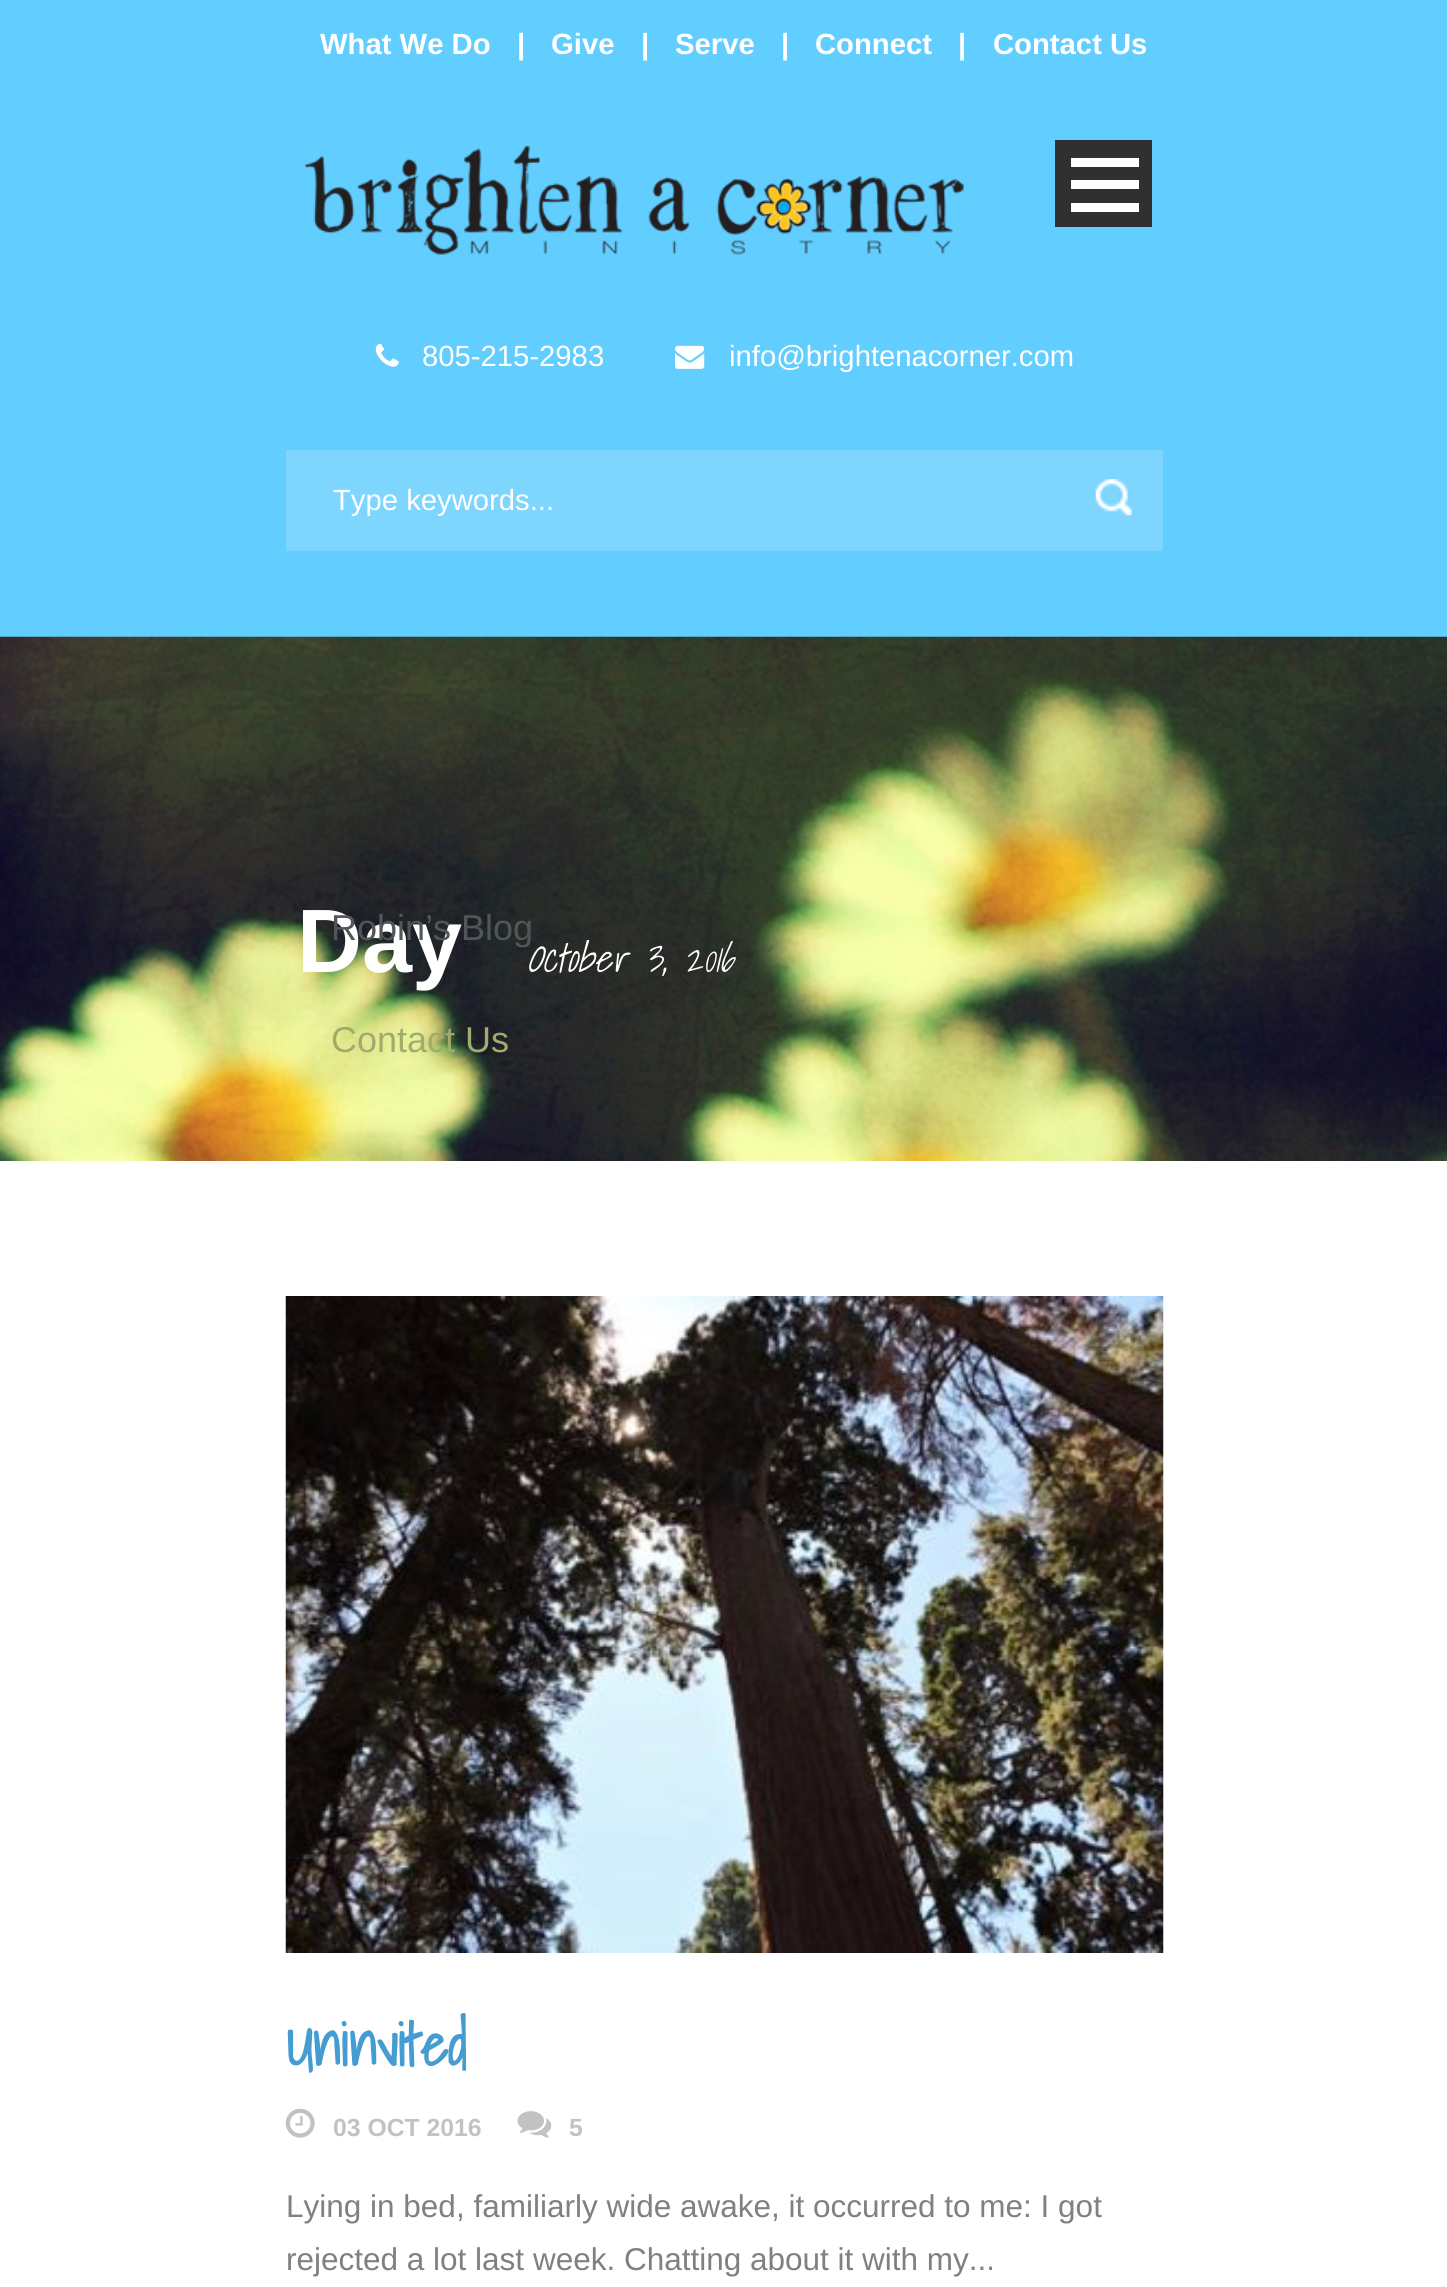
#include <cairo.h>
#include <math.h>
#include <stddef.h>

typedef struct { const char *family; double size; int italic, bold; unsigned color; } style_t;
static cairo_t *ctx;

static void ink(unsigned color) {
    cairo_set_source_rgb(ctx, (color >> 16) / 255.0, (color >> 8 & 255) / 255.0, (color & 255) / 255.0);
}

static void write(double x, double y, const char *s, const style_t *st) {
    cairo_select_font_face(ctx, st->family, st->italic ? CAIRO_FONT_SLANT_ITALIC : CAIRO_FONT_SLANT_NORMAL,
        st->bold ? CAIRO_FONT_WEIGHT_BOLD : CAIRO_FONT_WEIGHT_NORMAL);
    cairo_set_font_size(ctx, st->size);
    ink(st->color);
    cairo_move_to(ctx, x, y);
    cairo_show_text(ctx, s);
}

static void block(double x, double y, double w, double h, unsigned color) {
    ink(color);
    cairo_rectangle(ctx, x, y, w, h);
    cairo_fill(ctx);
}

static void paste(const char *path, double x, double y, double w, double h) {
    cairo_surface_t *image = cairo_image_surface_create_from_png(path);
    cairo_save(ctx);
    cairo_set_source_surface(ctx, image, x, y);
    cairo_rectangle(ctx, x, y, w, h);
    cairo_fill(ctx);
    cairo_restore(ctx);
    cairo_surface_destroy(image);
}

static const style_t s1 = {"Liberation Sans", 29.25, 0, 1, 0xffffff};
static const style_t s2 = {"Liberation Sans", 29.25, 0, 0, 0xffffff};
static const style_t s3 = {"Liberation Sans", 90, 0, 1, 0xffffff};
static const style_t s4 = {"Liberation Sans", 36, 0, 0, 0x525658};
static const style_t s5 = {"Liberation Sans", 36, 0, 0, 0xa2ab6d};
static const style_t s6 = {"Shadows Into Light Light", 38.25, 1, 0, 0xffffff};
static const style_t s7 = {"Shadows Into Light", 58.5, 0, 1, 0x459cd3};
static const style_t s8 = {"Liberation Sans", 24.75, 0, 1, 0xc2c2c2};
static const style_t s9 = {"Liberation Sans", 31.5, 0, 0, 0x808080};

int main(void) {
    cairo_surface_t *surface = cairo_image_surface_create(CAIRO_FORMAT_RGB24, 1447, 2287);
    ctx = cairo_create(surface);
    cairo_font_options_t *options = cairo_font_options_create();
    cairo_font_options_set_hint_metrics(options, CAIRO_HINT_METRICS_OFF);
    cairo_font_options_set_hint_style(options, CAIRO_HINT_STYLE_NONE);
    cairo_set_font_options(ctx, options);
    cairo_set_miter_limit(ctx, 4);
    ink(0xffffff);
    cairo_paint(ctx);
    block(0, 0, 1447, 637, 0x62cdff);
    write(320, 54, "What We Do", &s1);
    write(517, 54, "|", &s1);
    write(551, 54, "Give", &s1);
    write(641, 54, "|", &s1);
    write(675, 54, "Serve", &s1);
    write(781, 54, "|", &s1);
    write(815, 54, "Connect", &s1);
    write(958, 54, "|", &s1);
    write(993, 54, "Contact Us", &s1);
    paste("pic1.png", 375, 343, 24, 24);
    write(422, 366, "805-215-2983", &s2);
    paste("pic2.png", 675, 345, 30, 24);
    write(729, 366, "info@brightenacorner.com", &s2);
    block(286, 450, 877, 101, 0x7ed6ff);
    write(333, 510, "Type keywords...", &s2);
    paste("pic3.png", 1095, 479, 37, 37);
    paste("pic4.png", 305, 145, 659, 110);
    block(1055, 140, 97, 87, 0x303030);
    block(1071, 203, 68, 9, 0xffffff);
    block(1071, 180, 68, 9, 0xffffff);
    block(1071, 158, 68, 9, 0xffffff);
    paste("pic5.png", 0, 636, 1447, 525);
    write(297, 972, "Day", &s3);
    write(331, 940, "Robin’s Blog", &s4);
    write(331, 1052, "Contact Us", &s5);
    write(527, 972, "October 3, 2016", &s6);
    paste("pic6.png", 285, 1296, 879, 657);
    write(286, 2066, "Uninvited", &s7);
    paste("pic7.png", 285, 2108, 30, 30);
    write(333, 2136, "03 OCT 2016", &s8);
    paste("pic8.png", 517, 2111, 35, 27);
    write(569, 2136, "5", &s8);
    write(286, 2217, "Lying in bed, familiarly wide awake, it occurred to me: I got", &s9);
    write(286, 2270, "rejected a lot last week. Chatting about it with my...", &s9);
    cairo_surface_write_to_png(surface, "screenshot.png");
    cairo_font_options_destroy(options);
    cairo_destroy(ctx);
    cairo_surface_destroy(surface);
    return 0;
}
